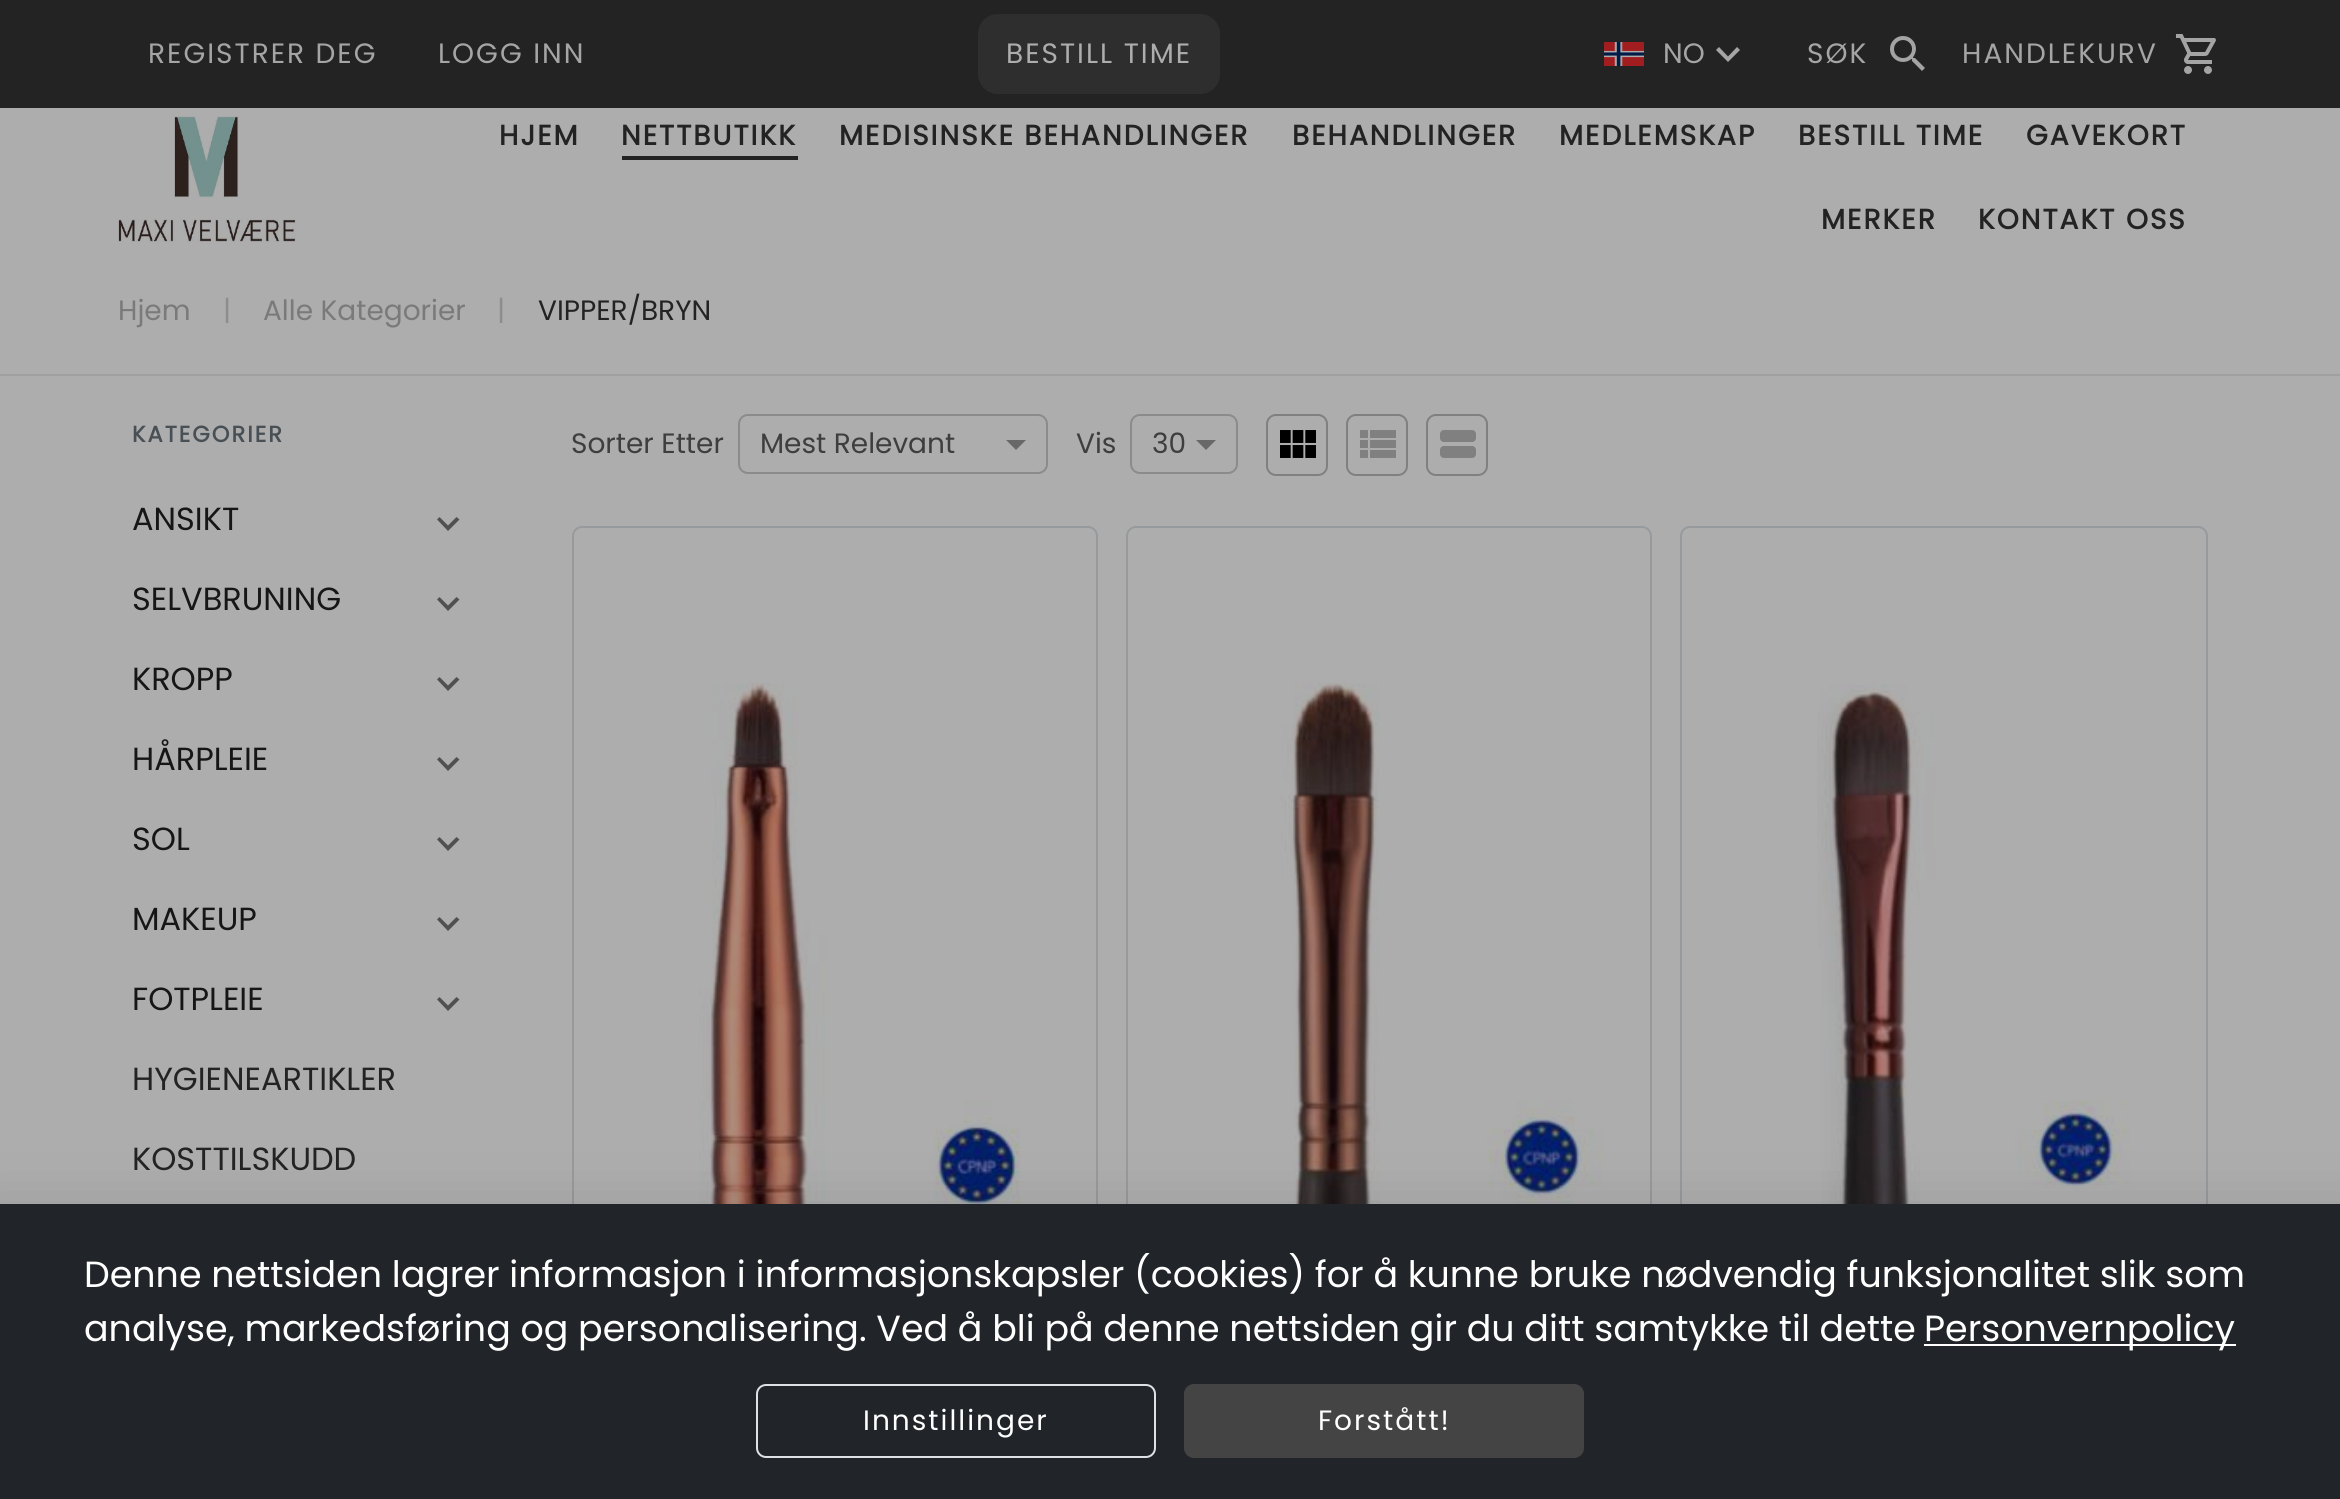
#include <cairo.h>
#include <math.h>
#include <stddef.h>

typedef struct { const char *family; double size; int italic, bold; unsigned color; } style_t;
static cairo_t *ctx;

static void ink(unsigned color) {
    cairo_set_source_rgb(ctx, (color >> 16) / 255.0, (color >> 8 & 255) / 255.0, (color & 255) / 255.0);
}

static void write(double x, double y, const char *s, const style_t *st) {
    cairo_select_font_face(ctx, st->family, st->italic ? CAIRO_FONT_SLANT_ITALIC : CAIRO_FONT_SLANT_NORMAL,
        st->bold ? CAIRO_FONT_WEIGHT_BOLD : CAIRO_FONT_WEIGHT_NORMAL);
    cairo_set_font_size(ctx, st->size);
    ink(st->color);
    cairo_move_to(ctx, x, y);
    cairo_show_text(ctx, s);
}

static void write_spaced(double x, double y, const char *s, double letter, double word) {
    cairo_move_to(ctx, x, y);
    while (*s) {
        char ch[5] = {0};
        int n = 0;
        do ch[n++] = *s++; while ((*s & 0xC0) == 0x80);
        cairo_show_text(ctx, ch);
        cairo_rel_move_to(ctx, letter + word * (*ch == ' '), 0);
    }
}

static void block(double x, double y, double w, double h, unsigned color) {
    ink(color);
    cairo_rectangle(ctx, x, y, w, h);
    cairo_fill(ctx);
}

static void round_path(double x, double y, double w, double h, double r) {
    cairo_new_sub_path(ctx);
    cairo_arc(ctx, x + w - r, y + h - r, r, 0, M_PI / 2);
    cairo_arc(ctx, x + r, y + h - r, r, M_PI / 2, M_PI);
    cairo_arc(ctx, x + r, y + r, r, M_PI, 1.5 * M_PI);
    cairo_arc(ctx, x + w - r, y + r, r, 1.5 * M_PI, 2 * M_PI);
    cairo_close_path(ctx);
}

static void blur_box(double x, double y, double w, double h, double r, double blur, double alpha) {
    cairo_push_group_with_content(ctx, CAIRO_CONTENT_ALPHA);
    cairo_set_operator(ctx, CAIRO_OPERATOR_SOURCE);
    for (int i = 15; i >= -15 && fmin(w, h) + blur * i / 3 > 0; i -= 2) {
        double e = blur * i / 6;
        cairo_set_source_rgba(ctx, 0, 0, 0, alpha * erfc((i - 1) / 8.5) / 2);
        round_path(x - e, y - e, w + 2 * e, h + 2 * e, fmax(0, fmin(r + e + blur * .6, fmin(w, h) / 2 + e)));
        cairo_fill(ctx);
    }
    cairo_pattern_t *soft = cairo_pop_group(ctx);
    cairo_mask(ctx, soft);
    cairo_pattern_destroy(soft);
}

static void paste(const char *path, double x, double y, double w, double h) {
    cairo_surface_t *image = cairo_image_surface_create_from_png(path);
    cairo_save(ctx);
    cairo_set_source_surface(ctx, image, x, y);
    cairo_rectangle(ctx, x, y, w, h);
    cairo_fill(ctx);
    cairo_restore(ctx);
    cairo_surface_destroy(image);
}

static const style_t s1 = {"Poppins", 28, 0, 0, 0xa5a5a5};
static const style_t s2 = {"Poppins", 28, 0, 0, 0x7a7a7a};
static const style_t s3 = {"Poppins", 28, 0, 0, 0x8d8d8d};
static const style_t s4 = {"Poppins", 28, 0, 0, 0x232323};
static const style_t s5 = {"Poppins", 32, 0, 0, 0x161616};
static const style_t s6 = {"Poppins", 32, 0, 0, 0x232323};
static const style_t s7 = {"Poppins", 28, 0, 0, 0x3e3e3e};
static const style_t s8 = {"Poppins", 36.4, 0, 0, 0xffffff};

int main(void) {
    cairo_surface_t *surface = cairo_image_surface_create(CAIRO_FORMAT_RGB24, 2340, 1499);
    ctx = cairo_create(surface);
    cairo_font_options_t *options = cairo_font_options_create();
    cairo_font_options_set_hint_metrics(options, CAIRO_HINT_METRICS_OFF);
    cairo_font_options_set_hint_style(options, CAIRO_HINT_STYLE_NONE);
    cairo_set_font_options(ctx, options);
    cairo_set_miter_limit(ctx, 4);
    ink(0xadadad);
    cairo_paint(ctx);
    block(0, 0, 2340, 108, 0x232323);
    cairo_select_font_face(ctx, "Poppins", CAIRO_FONT_SLANT_NORMAL, CAIRO_FONT_WEIGHT_NORMAL);
    cairo_set_font_size(ctx, 28);
    ink(0xa5a5a5);
    write_spaced(148, 63, "REGISTRER DEG", 2, 0);
    write_spaced(438, 63, "LOGG INN", 2, 0);
    ink(0x2e2e2e);
    round_path(978, 14, 242, 80, 20);
    cairo_fill(ctx);
    ink(0xadadad);
    write_spaced(1006, 63, "BESTILL TIME", 2, 0);
    paste("pic1.png", 1604, 42, 40, 24);
    write(1663, 63, "NO", &s1);
    cairo_new_path(ctx);
    cairo_move_to(ctx, 1737, 47);
    cairo_line_to(ctx, 1740, 50);
    cairo_line_to(ctx, 1728, 62);
    cairo_line_to(ctx, 1716, 50);
    cairo_line_to(ctx, 1719, 47);
    cairo_line_to(ctx, 1728, 56.5);
    cairo_close_path(ctx);
    cairo_fill(ctx);
    write_spaced(1807, 63, "SØK", 2, 0);
    paste("pic2.png", 1890, 36, 35, 35);
    write_spaced(1962, 63, "HANDLEKURV", 2, 0);
    paste("pic3.png", 2175, 34, 41, 40);
    paste("pic4.png", 118, 116, 178, 126);
    cairo_select_font_face(ctx, "Poppins", CAIRO_FONT_SLANT_NORMAL, CAIRO_FONT_WEIGHT_BOLD);
    ink(0x232323);
    write_spaced(499, 145, "HJEM", 2, 0);
    write_spaced(621, 145, "NETTBUTIKK", 2, 0);
    block(622, 156, 176, 4, 0x232323);
    write_spaced(839, 145, "MEDISINSKE BEHANDLINGER", 2, 0);
    write_spaced(1292, 145, "BEHANDLINGER", 2, 0);
    write_spaced(1559, 145, "MEDLEMSKAP", 2, 0);
    write_spaced(1798, 145, "BESTILL TIME", 2, 0);
    write_spaced(2026, 145, "GAVEKORT", 2, 0);
    write_spaced(1821, 229, "MERKER", 2, 0);
    write_spaced(1978, 229, "KONTAKT OSS", 2, 0);
    block(0, 374, 2340, 2, 0xa0a0a0);
    write(118, 320, "Hjem", &s2);
    write(223, 320, "|", &s3);
    write(263, 320, "Alle Kategorier", &s2);
    write(497, 320, "|", &s3);
    write(538, 320, "VIPPER/BRYN", &s4);
    cairo_select_font_face(ctx, "Poppins", CAIRO_FONT_SLANT_NORMAL, CAIRO_FONT_WEIGHT_BOLD);
    cairo_set_font_size(ctx, 22.5);
    ink(0x495055);
    write_spaced(132, 442, "KATEGORIER", 2, 0);
    write(132, 530, "ANSIKT", &s5);
    ink(0x505050);
    cairo_new_path(ctx);
    cairo_move_to(ctx, 459.5, 519.5);
    cairo_line_to(ctx, 448, 531);
    cairo_line_to(ctx, 448, 525.5);
    cairo_line_to(ctx, 456.5, 517);
    cairo_close_path(ctx);
    cairo_move_to(ctx, 448, 531);
    cairo_line_to(ctx, 437, 519.5);
    cairo_line_to(ctx, 439.5, 517);
    cairo_line_to(ctx, 448, 525.5);
    cairo_close_path(ctx);
    cairo_fill(ctx);
    write(132, 610, "SELVBRUNING", &s5);
    ink(0x505050);
    cairo_new_path(ctx);
    cairo_move_to(ctx, 459.5, 599.5);
    cairo_line_to(ctx, 448, 611);
    cairo_line_to(ctx, 448, 605.5);
    cairo_line_to(ctx, 456.5, 597);
    cairo_close_path(ctx);
    cairo_move_to(ctx, 448, 611);
    cairo_line_to(ctx, 437, 599.5);
    cairo_line_to(ctx, 439.5, 597);
    cairo_line_to(ctx, 448, 605.5);
    cairo_close_path(ctx);
    cairo_fill(ctx);
    write(132, 690, "KROPP", &s5);
    ink(0x505050);
    cairo_new_path(ctx);
    cairo_move_to(ctx, 459.5, 679.5);
    cairo_line_to(ctx, 448, 691);
    cairo_line_to(ctx, 448, 685.5);
    cairo_line_to(ctx, 456.5, 677);
    cairo_close_path(ctx);
    cairo_move_to(ctx, 448, 691);
    cairo_line_to(ctx, 437, 679.5);
    cairo_line_to(ctx, 439.5, 677);
    cairo_line_to(ctx, 448, 685.5);
    cairo_close_path(ctx);
    cairo_fill(ctx);
    write(132, 770, "HÅRPLEIE", &s5);
    ink(0x505050);
    cairo_new_path(ctx);
    cairo_move_to(ctx, 459.5, 759.5);
    cairo_line_to(ctx, 448, 771);
    cairo_line_to(ctx, 448, 765.5);
    cairo_line_to(ctx, 456.5, 757);
    cairo_close_path(ctx);
    cairo_move_to(ctx, 448, 771);
    cairo_line_to(ctx, 437, 759.5);
    cairo_line_to(ctx, 439.5, 757);
    cairo_line_to(ctx, 448, 765.5);
    cairo_close_path(ctx);
    cairo_fill(ctx);
    write(132, 850, "SOL", &s5);
    ink(0x505050);
    cairo_new_path(ctx);
    cairo_move_to(ctx, 459.5, 839.5);
    cairo_line_to(ctx, 448, 851);
    cairo_line_to(ctx, 448, 845.5);
    cairo_line_to(ctx, 456.5, 837);
    cairo_close_path(ctx);
    cairo_move_to(ctx, 448, 851);
    cairo_line_to(ctx, 437, 839.5);
    cairo_line_to(ctx, 439.5, 837);
    cairo_line_to(ctx, 448, 845.5);
    cairo_close_path(ctx);
    cairo_fill(ctx);
    write(132, 930, "MAKEUP", &s5);
    ink(0x505050);
    cairo_new_path(ctx);
    cairo_move_to(ctx, 459.5, 919.5);
    cairo_line_to(ctx, 448, 931);
    cairo_line_to(ctx, 448, 925.5);
    cairo_line_to(ctx, 456.5, 917);
    cairo_close_path(ctx);
    cairo_move_to(ctx, 448, 931);
    cairo_line_to(ctx, 437, 919.5);
    cairo_line_to(ctx, 439.5, 917);
    cairo_line_to(ctx, 448, 925.5);
    cairo_close_path(ctx);
    cairo_fill(ctx);
    write(132, 1010, "FOTPLEIE", &s5);
    ink(0x505050);
    cairo_new_path(ctx);
    cairo_move_to(ctx, 459.5, 999.5);
    cairo_line_to(ctx, 448, 1011);
    cairo_line_to(ctx, 448, 1005.5);
    cairo_line_to(ctx, 456.5, 997);
    cairo_close_path(ctx);
    cairo_move_to(ctx, 448, 1011);
    cairo_line_to(ctx, 437, 999.5);
    cairo_line_to(ctx, 439.5, 997);
    cairo_line_to(ctx, 448, 1005.5);
    cairo_close_path(ctx);
    cairo_fill(ctx);
    write(132, 1090, "HYGIENEARTIKLER", &s6);
    write(132, 1170, "KOSTTILSKUDD", &s6);
    write(571, 453, "Sorter Etter", &s7);
    round_path(739, 415, 308, 58, 9);
    ink(0x8b8b8b);
    cairo_stroke(ctx);
    write(760, 453, "Mest Relevant", &s7);
    block(1045, 465, 1, 1, 0xadadad);
    ink(0x686868);
    cairo_new_path(ctx);
    cairo_move_to(ctx, 1006, 440);
    cairo_line_to(ctx, 1026, 440);
    cairo_line_to(ctx, 1016, 450);
    cairo_close_path(ctx);
    cairo_fill(ctx);
    write(1076, 453, "Vis", &s7);
    round_path(1131, 415, 106, 58, 9);
    ink(0x8b8b8b);
    cairo_stroke(ctx);
    write(1152, 453, "30", &s7);
    block(1235, 465, 1, 1, 0xadadad);
    ink(0x686868);
    cairo_new_path(ctx);
    cairo_move_to(ctx, 1196, 440);
    cairo_line_to(ctx, 1216, 440);
    cairo_line_to(ctx, 1206, 450);
    cairo_close_path(ctx);
    cairo_fill(ctx);
    round_path(1267, 415, 60, 60, 9);
    ink(0x808080);
    cairo_stroke(ctx);
    paste("pic5.png", 1280, 430, 36, 28);
    round_path(1347, 415, 60, 60, 9);
    cairo_stroke(ctx);
    paste("pic6.png", 1360, 430, 36, 28);
    round_path(1427, 415, 60, 60, 9);
    cairo_stroke(ctx);
    paste("pic7.png", 1440, 430, 36, 28);
    round_path(573, 527, 524, 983, 9);
    ink(0x979a9c);
    cairo_stroke(ctx);
    paste("pic8.png", 699, 682, 322, 522);
    round_path(1127, 527, 524, 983, 9);
    cairo_stroke(ctx);
    paste("pic9.png", 1281, 683, 322, 521);
    round_path(1681, 527, 526, 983, 9);
    cairo_stroke(ctx);
    paste("pic10.png", 1817, 684, 313, 520);
    ink(0x000000);
    blur_box(-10, 1206, 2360, 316, 0, 30, 0.12);
    block(0, 1204, 2340, 295, 0x212529);
    write(84, 1287, "Denne nettsiden lagrer informasjon i informasjonskapsler (cookies) for å kunne bruke nødvendig funksjonalitet slik som", &s8);
    write(84, 1341, "analyse, markedsføring og personalisering. Ved å bli på denne nettsiden gir du ditt samtykke til dette", &s8);
    block(1924, 1344, 312, 2, 0xffffff);
    write(1924, 1341, "Personvernpolicy", &s8);
    round_path(757, 1385, 398, 72, 9);
    ink(0xdee2e6);
    cairo_stroke(ctx);
    cairo_set_font_size(ctx, 28);
    ink(0xffffff);
    write_spaced(863, 1430, "Innstillinger", 2, 0);
    ink(0x444444);
    round_path(1184, 1384, 400, 74, 10);
    cairo_fill(ctx);
    ink(0xffffff);
    write_spaced(1318, 1430, "Forstått!", 2, 0);
    cairo_surface_write_to_png(surface, "screenshot.png");
    cairo_font_options_destroy(options);
    cairo_destroy(ctx);
    cairo_surface_destroy(surface);
    return 0;
}
